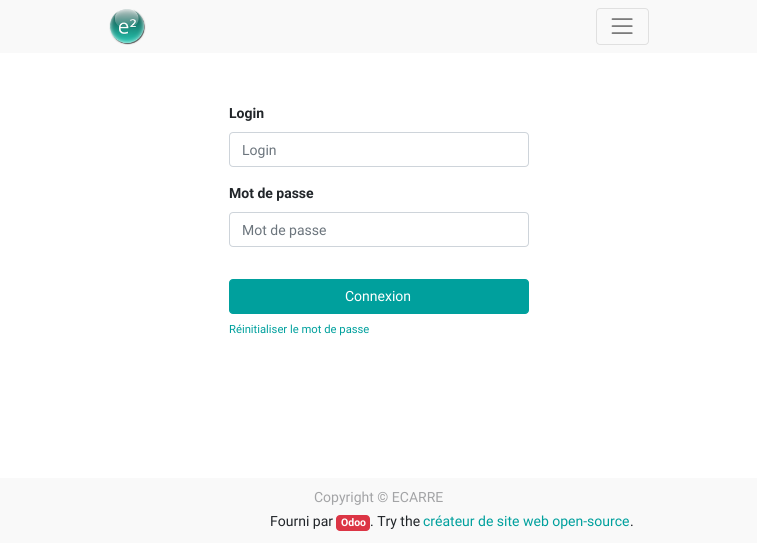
#include <cairo.h>
#include <math.h>
#include <stddef.h>

typedef struct { const char *family; double size; int italic, bold; unsigned color; } style_t;
static cairo_t *ctx;

static void ink(unsigned color) {
    cairo_set_source_rgb(ctx, (color >> 16) / 255.0, (color >> 8 & 255) / 255.0, (color & 255) / 255.0);
}

static void write(double x, double y, const char *s, const style_t *st) {
    cairo_select_font_face(ctx, st->family, st->italic ? CAIRO_FONT_SLANT_ITALIC : CAIRO_FONT_SLANT_NORMAL,
        st->bold ? CAIRO_FONT_WEIGHT_BOLD : CAIRO_FONT_WEIGHT_NORMAL);
    cairo_set_font_size(ctx, st->size);
    ink(st->color);
    cairo_move_to(ctx, x, y);
    cairo_show_text(ctx, s);
}

static void block(double x, double y, double w, double h, unsigned color) {
    ink(color);
    cairo_rectangle(ctx, x, y, w, h);
    cairo_fill(ctx);
}

static void round_path(double x, double y, double w, double h, double r) {
    cairo_new_sub_path(ctx);
    cairo_arc(ctx, x + w - r, y + h - r, r, 0, M_PI / 2);
    cairo_arc(ctx, x + r, y + h - r, r, M_PI / 2, M_PI);
    cairo_arc(ctx, x + r, y + r, r, M_PI, 1.5 * M_PI);
    cairo_arc(ctx, x + w - r, y + r, r, 1.5 * M_PI, 2 * M_PI);
    cairo_close_path(ctx);
}

static void paste(const char *path, double x, double y, double w, double h) {
    cairo_surface_t *image = cairo_image_surface_create_from_png(path);
    cairo_save(ctx);
    cairo_set_source_surface(ctx, image, x, y);
    cairo_rectangle(ctx, x, y, w, h);
    cairo_fill(ctx);
    cairo_restore(ctx);
    cairo_surface_destroy(image);
}

static const style_t s1 = {"Roboto", 14, 0, 1, 0x212529};
static const style_t s2 = {"Roboto", 14, 0, 0, 0x6c757d};
static const style_t s3 = {"Roboto", 14, 0, 0, 0xffffff};
static const style_t s4 = {"Roboto", 11.25, 0, 0, 0x00a09d};
static const style_t s5 = {"Roboto", 14, 0, 0, 0xa3a4a6};
static const style_t s6 = {"Roboto", 14, 0, 0, 0x212529};
static const style_t s7 = {"Roboto", 10.5, 0, 1, 0xffffff};
static const style_t s8 = {"Roboto", 14, 0, 0, 0x00a09d};

int main(void) {
    cairo_surface_t *surface = cairo_image_surface_create(CAIRO_FORMAT_RGB24, 757, 543);
    ctx = cairo_create(surface);
    cairo_font_options_t *options = cairo_font_options_create();
    cairo_font_options_set_hint_metrics(options, CAIRO_HINT_METRICS_OFF);
    cairo_font_options_set_hint_style(options, CAIRO_HINT_STYLE_NONE);
    cairo_set_font_options(ctx, options);
    cairo_set_miter_limit(ctx, 4);
    ink(0xffffff);
    cairo_paint(ctx);
    block(0, 0, 757, 53, 0xf9f9f9);
    paste("pic1.png", 109, 9, 37, 36);
    round_path(596.5, 8.5, 52, 36, 3.5);
    ink(0xe0e0e0);
    cairo_set_line_width(ctx, 1);
    cairo_stroke(ctx);
    paste("pic2.png", 611, 18, 22, 16);
    write(229, 118, "Login", &s1);
    round_path(229.5, 132.5, 299, 34, 3.5);
    ink(0xced4da);
    cairo_stroke(ctx);
    write(242, 155, "Login", &s2);
    write(229, 198, "Mot de passe", &s1);
    round_path(229.5, 212.5, 299, 34, 3.5);
    ink(0xced4da);
    cairo_stroke(ctx);
    write(242, 235, "Mot de passe", &s2);
    ink(0x00a09d);
    round_path(229.5, 279.5, 299, 34, 3.5);
    cairo_fill_preserve(ctx);
    cairo_stroke(ctx);
    write(345, 301, "Connexion", &s3);
    write(229, 333, "Réinitialiser le mot de passe", &s4);
    block(0, 478, 757, 65, 0xf9f9f9);
    write(314, 502, "Copyright © ECARRE", &s5);
    write(270, 526, "Fourni par", &s6);
    ink(0xdc3545);
    round_path(336, 515, 34, 16, 4);
    cairo_fill(ctx);
    write(341, 526, "Odoo", &s7);
    write(370, 526, ". Try the", &s6);
    write(423, 526, "créateur de site web open-source", &s8);
    write(630, 526, ".", &s6);
    cairo_surface_write_to_png(surface, "screenshot.png");
    cairo_font_options_destroy(options);
    cairo_destroy(ctx);
    cairo_surface_destroy(surface);
    return 0;
}
